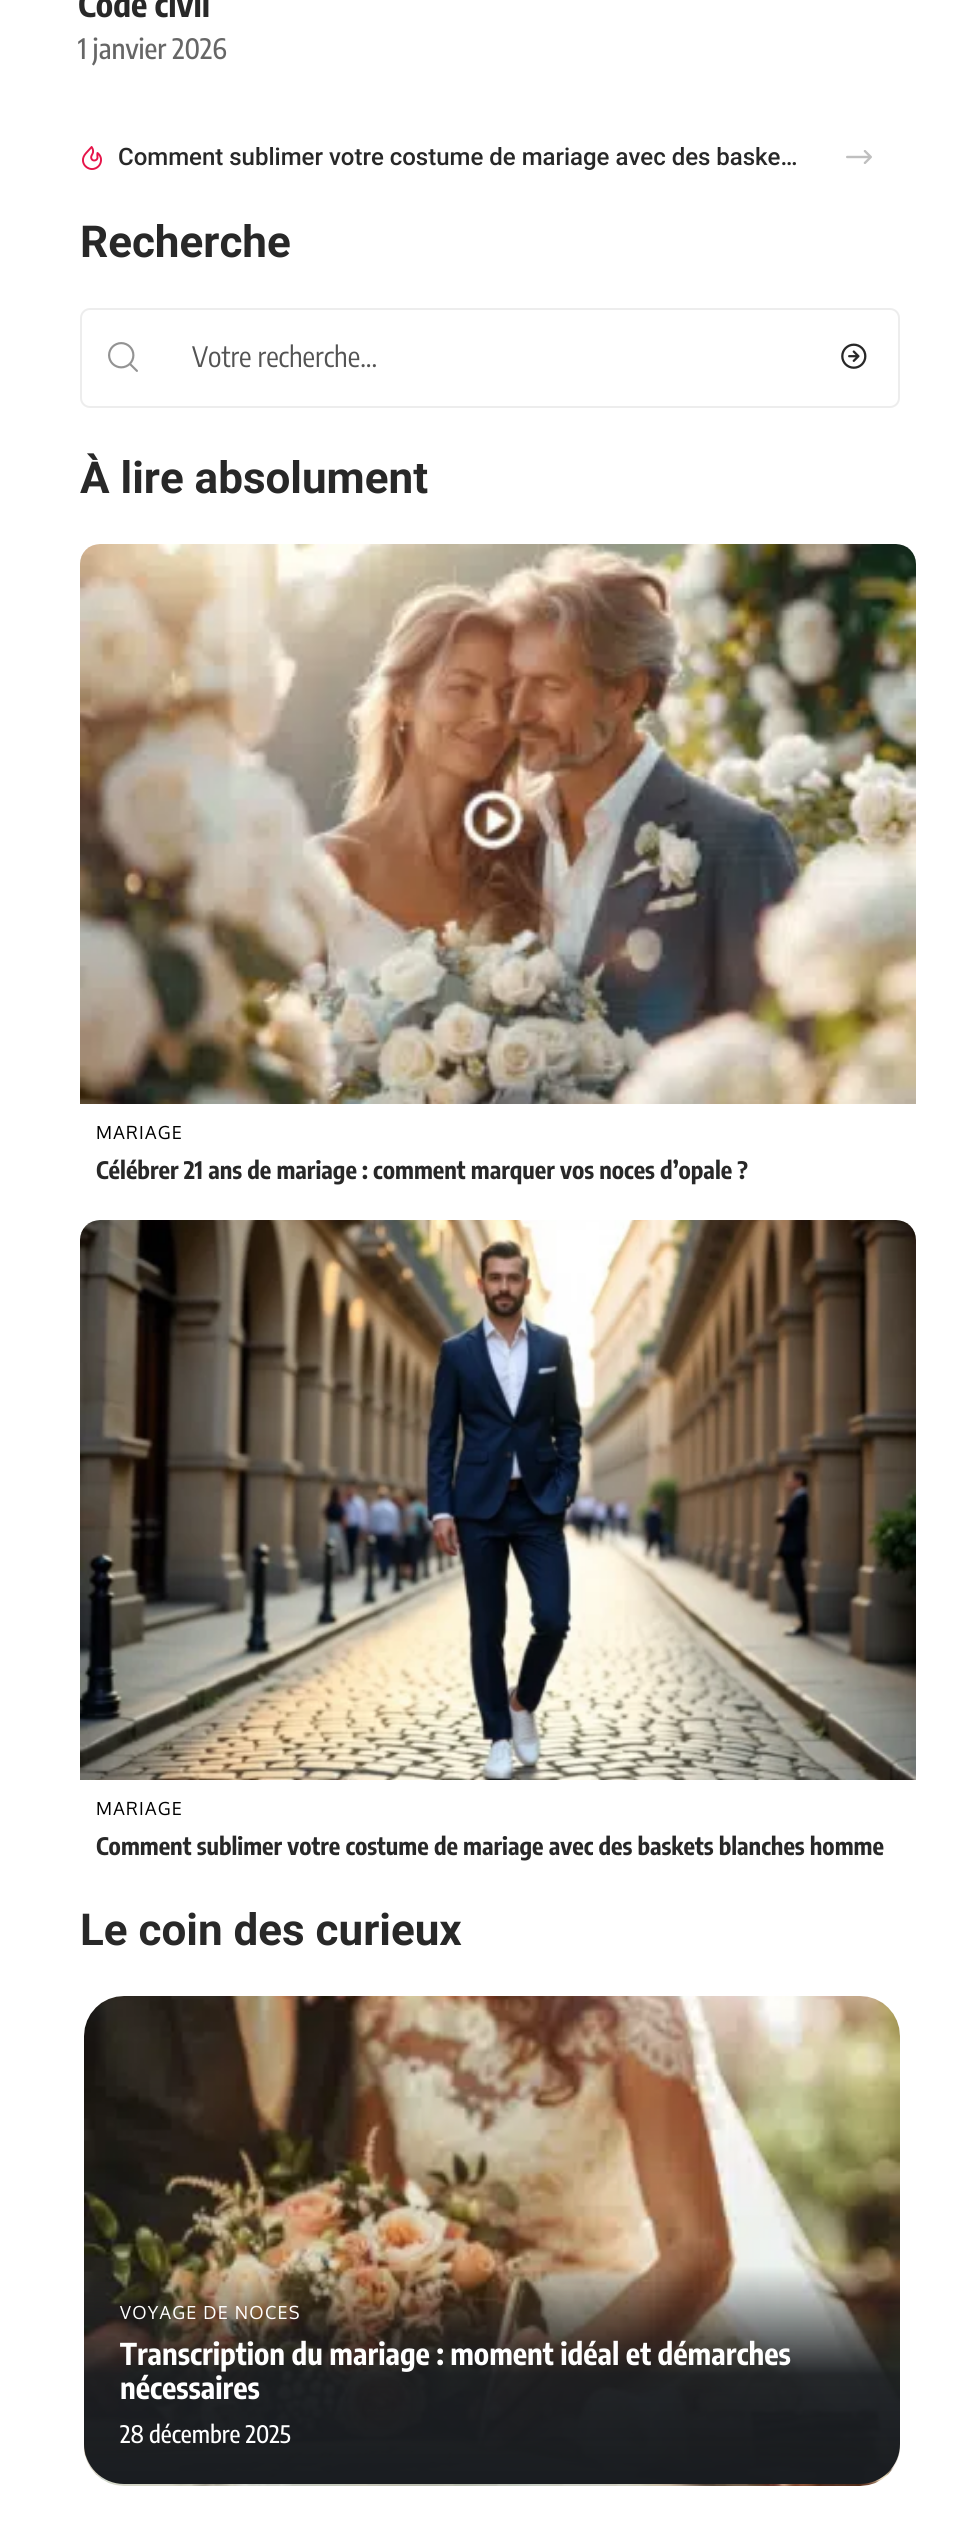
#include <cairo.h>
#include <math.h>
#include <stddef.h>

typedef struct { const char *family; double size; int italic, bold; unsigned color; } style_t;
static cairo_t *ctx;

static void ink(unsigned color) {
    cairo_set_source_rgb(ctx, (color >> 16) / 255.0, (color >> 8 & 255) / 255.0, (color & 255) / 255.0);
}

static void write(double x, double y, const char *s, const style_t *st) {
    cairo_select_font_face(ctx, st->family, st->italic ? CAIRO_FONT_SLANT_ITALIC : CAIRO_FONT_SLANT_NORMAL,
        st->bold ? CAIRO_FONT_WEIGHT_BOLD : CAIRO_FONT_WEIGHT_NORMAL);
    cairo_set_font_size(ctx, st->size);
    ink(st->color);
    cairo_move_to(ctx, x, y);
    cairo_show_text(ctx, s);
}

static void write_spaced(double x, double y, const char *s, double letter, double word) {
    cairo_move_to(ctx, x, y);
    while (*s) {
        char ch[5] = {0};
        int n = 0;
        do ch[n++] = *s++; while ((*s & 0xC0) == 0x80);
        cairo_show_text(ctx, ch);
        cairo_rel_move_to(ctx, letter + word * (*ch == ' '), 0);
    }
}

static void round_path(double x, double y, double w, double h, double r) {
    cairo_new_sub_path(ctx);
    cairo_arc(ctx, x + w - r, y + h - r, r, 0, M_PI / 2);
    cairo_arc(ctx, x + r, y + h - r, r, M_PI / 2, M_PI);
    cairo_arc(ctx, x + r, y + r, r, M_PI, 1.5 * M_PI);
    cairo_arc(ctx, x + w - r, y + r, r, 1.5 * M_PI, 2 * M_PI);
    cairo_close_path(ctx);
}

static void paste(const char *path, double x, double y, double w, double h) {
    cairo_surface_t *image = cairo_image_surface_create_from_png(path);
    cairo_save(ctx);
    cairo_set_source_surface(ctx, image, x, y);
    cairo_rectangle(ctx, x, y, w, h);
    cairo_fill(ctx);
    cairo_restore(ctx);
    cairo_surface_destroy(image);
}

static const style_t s1 = {"Encode Sans Condensed", 34, 0, 1, 0x282828};
static const style_t s2 = {"Encode Sans Condensed Medium", 28, 0, 0, 0x666666};
static const style_t s3 = {"Roboto Medium", 24, 0, 0, 0x282828};
static const style_t s4 = {"Roboto", 44, 0, 1, 0x282828};
static const style_t s5 = {"Encode Sans Condensed", 28, 0, 0, 0x535353};
static const style_t s6 = {"Encode Sans Condensed", 24, 0, 1, 0x282828};
static const style_t s7 = {"Encode Sans Condensed", 30, 0, 1, 0xffffff};
static const style_t s8 = {"Encode Sans Condensed Medium", 24, 0, 0, 0xffffff};

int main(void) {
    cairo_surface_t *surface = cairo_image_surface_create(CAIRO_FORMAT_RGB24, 980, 2540);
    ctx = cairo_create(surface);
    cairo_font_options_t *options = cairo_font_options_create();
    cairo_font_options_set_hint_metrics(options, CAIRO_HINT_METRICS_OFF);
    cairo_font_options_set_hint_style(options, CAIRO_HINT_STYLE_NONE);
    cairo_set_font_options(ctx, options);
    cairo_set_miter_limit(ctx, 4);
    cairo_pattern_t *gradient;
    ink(0xffffff);
    cairo_paint(ctx);
    write(78, 17, "Code civil", &s1);
    write(78, 59, "1 janvier 2026", &s2);
    paste("pic1.png", 82, 146, 20, 24);
    write(118, 165, "Comment sublimer votre costume de mariage avec des baske…", &s3);
    paste("pic2.png", 846, 150, 26, 14);
    write(80, 257, "Recherche", &s4);
    round_path(81, 309, 818, 98, 9);
    ink(0xededed);
    cairo_stroke(ctx);
    paste("pic3.png", 108, 342, 30, 30);
    write(192, 367, "Votre recherche...", &s5);
    paste("pic4.png", 841, 343, 26, 26);
    write(80, 493, "À lire absolument", &s4);
    paste("pic5.png", 80, 544, 836, 560);
    cairo_select_font_face(ctx, "Oxygen", CAIRO_FONT_SLANT_NORMAL, CAIRO_FONT_WEIGHT_NORMAL);
    cairo_set_font_size(ctx, 18);
    ink(0x000000);
    write_spaced(96, 1139, "MARIAGE", 1.25, 0);
    write(96, 1179, "Célébrer 21 ans de mariage : comment marquer vos noces d’opale ?", &s6);
    paste("pic6.png", 80, 1220, 836, 560);
    cairo_select_font_face(ctx, "Oxygen", CAIRO_FONT_SLANT_NORMAL, CAIRO_FONT_WEIGHT_NORMAL);
    cairo_set_font_size(ctx, 18);
    ink(0x000000);
    write_spaced(96, 1815, "MARIAGE", 1.25, 0);
    write(96, 1855, "Comment sublimer votre costume de mariage avec des baskets blanches homme", &s6);
    write(80, 1945, "Le coin des curieux", &s4);
    paste("pic7.png", 84, 1996, 816, 490);
    gradient = cairo_pattern_create_linear(492, 2484, 492, 2266);
    cairo_pattern_add_color_stop_rgba(gradient, 0, 0.098, 0.11, 0.125, 1);
    cairo_pattern_add_color_stop_rgba(gradient, 0.5, 0.098, 0.11, 0.125, 0.95);
    cairo_pattern_add_color_stop_rgba(gradient, 1, 0.098, 0.11, 0.125, 0);
    cairo_set_source(ctx, gradient);
    cairo_pattern_destroy(gradient);
    cairo_new_path(ctx);
    cairo_move_to(ctx, 84, 2266);
    cairo_line_to(ctx, 900, 2266);
    cairo_line_to(ctx, 900, 2444);
    cairo_curve_to(ctx, 900, 2466, 882, 2484, 860, 2484);
    cairo_line_to(ctx, 124, 2484);
    cairo_curve_to(ctx, 102, 2484, 84, 2466, 84, 2444);
    cairo_close_path(ctx);
    cairo_fill(ctx);
    cairo_select_font_face(ctx, "Oxygen", CAIRO_FONT_SLANT_NORMAL, CAIRO_FONT_WEIGHT_NORMAL);
    cairo_set_font_size(ctx, 18);
    ink(0xffffff);
    write_spaced(120, 2319, "VOYAGE DE NOCES", 1.25, 0);
    write(120, 2365, "Transcription du mariage : moment idéal et démarches", &s7);
    write(120, 2399, "nécessaires", &s7);
    write(120, 2443, "28 décembre 2025", &s8);
    cairo_surface_write_to_png(surface, "screenshot.png");
    cairo_font_options_destroy(options);
    cairo_destroy(ctx);
    cairo_surface_destroy(surface);
    return 0;
}
